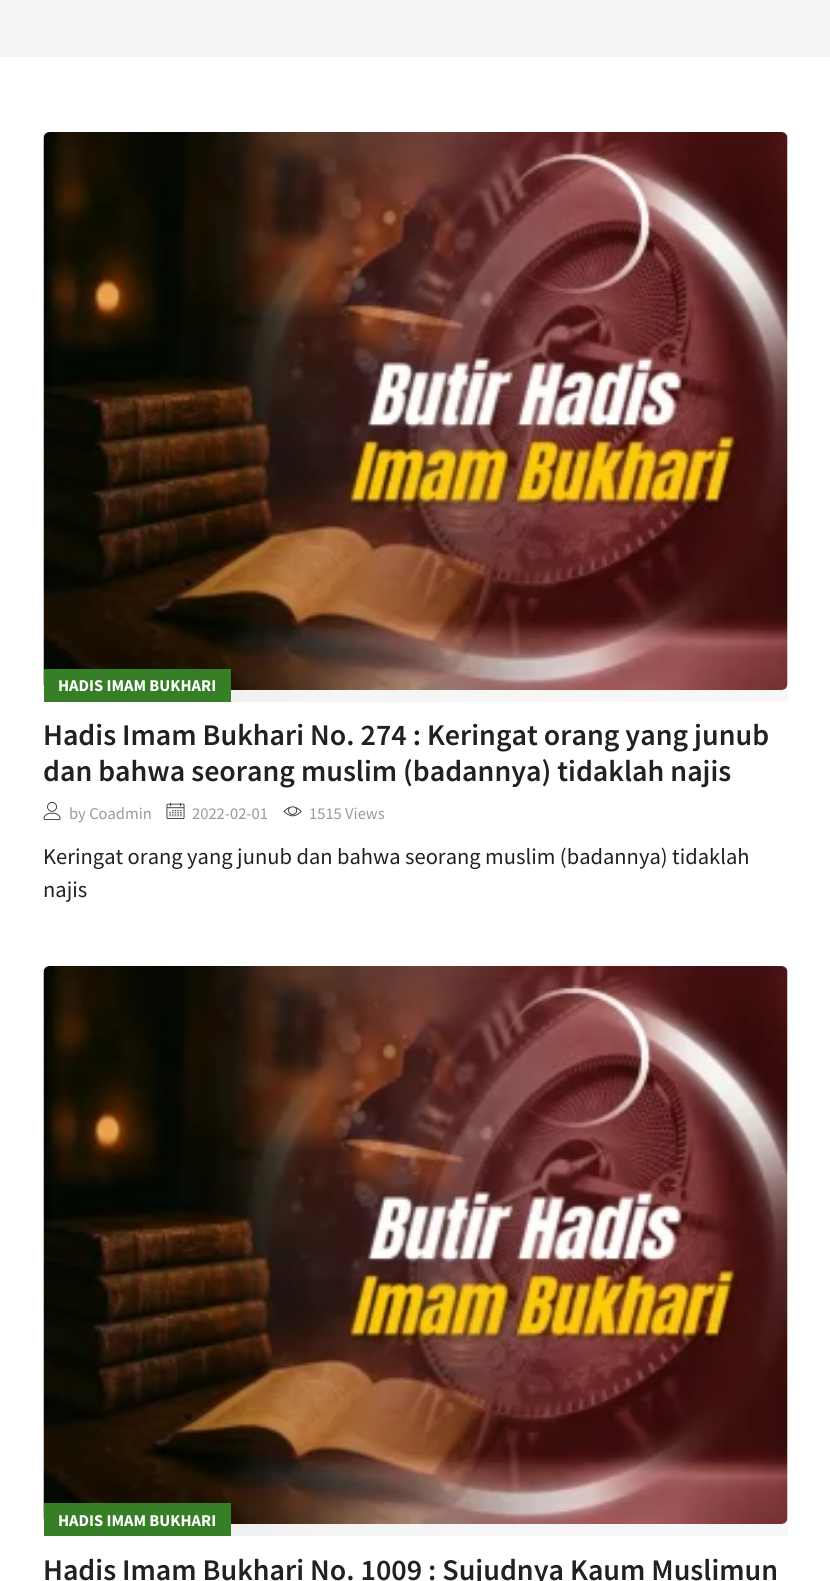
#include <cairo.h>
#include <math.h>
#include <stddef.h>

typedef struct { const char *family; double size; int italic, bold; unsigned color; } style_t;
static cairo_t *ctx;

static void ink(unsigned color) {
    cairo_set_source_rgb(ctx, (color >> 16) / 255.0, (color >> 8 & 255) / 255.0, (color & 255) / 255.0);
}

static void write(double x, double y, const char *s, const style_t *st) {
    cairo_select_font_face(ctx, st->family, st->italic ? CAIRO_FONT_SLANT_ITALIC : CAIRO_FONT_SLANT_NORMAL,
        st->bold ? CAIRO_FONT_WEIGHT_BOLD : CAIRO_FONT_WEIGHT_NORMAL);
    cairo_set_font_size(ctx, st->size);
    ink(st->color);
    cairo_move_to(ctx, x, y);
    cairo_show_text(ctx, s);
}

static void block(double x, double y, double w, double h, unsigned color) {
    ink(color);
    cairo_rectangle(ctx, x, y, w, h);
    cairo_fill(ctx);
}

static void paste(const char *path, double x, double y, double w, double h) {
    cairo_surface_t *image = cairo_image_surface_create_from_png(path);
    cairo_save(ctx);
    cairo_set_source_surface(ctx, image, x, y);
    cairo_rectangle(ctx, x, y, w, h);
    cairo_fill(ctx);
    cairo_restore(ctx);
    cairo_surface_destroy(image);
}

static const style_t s1 = {"Source Sans Pro", 16.5, 0, 1, 0xffffff};
static const style_t s2 = {"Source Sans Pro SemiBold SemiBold", 30, 0, 0, 0x212121};
static const style_t s3 = {"Source Sans Pro", 16.5, 0, 0, 0x999999};
static const style_t s4 = {"Source Sans Pro", 22.5, 0, 0, 0x212121};

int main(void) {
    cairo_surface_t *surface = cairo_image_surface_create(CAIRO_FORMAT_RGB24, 830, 1581);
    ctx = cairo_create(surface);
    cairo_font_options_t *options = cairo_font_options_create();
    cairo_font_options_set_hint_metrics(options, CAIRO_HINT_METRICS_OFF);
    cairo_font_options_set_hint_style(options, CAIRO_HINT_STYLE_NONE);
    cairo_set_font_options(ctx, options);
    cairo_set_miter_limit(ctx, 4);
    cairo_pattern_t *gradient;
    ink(0xffffff);
    cairo_paint(ctx);
    block(0, 0, 830, 57, 0xf5f5f5);
    gradient = cairo_pattern_create_linear(44, 417, 788, 417);
    cairo_pattern_add_color_stop_rgba(gradient, 0, 0.969, 0.969, 0.969, 1);
    cairo_pattern_add_color_stop_rgba(gradient, 0.2, 0.933, 0.933, 0.933, 1);
    cairo_pattern_add_color_stop_rgba(gradient, 0.4, 0.961, 0.961, 0.961, 1);
    cairo_pattern_add_color_stop_rgba(gradient, 1, 0.969, 0.969, 0.969, 1);
    cairo_set_source(ctx, gradient);
    cairo_pattern_destroy(gradient);
    cairo_rectangle(ctx, 44, 132, 744, 570);
    cairo_fill(ctx);
    paste("pic1.png", 43, 132, 745, 558);
    block(44, 669, 187, 33, 0x377f27);
    write(58, 691, "HADIS IMAM BUKHARI", &s1);
    write(43, 745, "Hadis Imam Bukhari No. 274 : Keringat orang yang junub", &s2);
    write(43, 781, "dan bahwa seorang muslim (badannya) tidaklah najis", &s2);
    paste("pic2.png", 43, 801, 18, 19);
    write(69, 819, "by Coadmin", &s3);
    paste("pic3.png", 166, 802, 19, 17);
    write(192, 819, "2022-02-01", &s3);
    paste("pic4.png", 283, 806, 19, 11);
    write(309, 819, "1515 Views", &s3);
    write(43, 864, "Keringat orang yang junub dan bahwa seorang muslim (badannya) tidaklah", &s4);
    write(43, 897, "najis", &s4);
    gradient = cairo_pattern_create_linear(44, 1251, 788, 1251);
    cairo_pattern_add_color_stop_rgba(gradient, 0, 0.969, 0.969, 0.969, 1);
    cairo_pattern_add_color_stop_rgba(gradient, 0.2, 0.933, 0.933, 0.933, 1);
    cairo_pattern_add_color_stop_rgba(gradient, 0.4, 0.961, 0.961, 0.961, 1);
    cairo_pattern_add_color_stop_rgba(gradient, 1, 0.969, 0.969, 0.969, 1);
    cairo_set_source(ctx, gradient);
    cairo_pattern_destroy(gradient);
    cairo_rectangle(ctx, 44, 966, 744, 570);
    cairo_fill(ctx);
    paste("pic1.png", 43, 966, 745, 558);
    block(44, 1503, 187, 33, 0x377f27);
    write(58, 1526, "HADIS IMAM BUKHARI", &s1);
    write(43, 1580, "Hadis Imam Bukhari No. 1009 : Sujudnya Kaum Muslimun", &s2);
    cairo_surface_write_to_png(surface, "screenshot.png");
    cairo_font_options_destroy(options);
    cairo_destroy(ctx);
    cairo_surface_destroy(surface);
    return 0;
}
